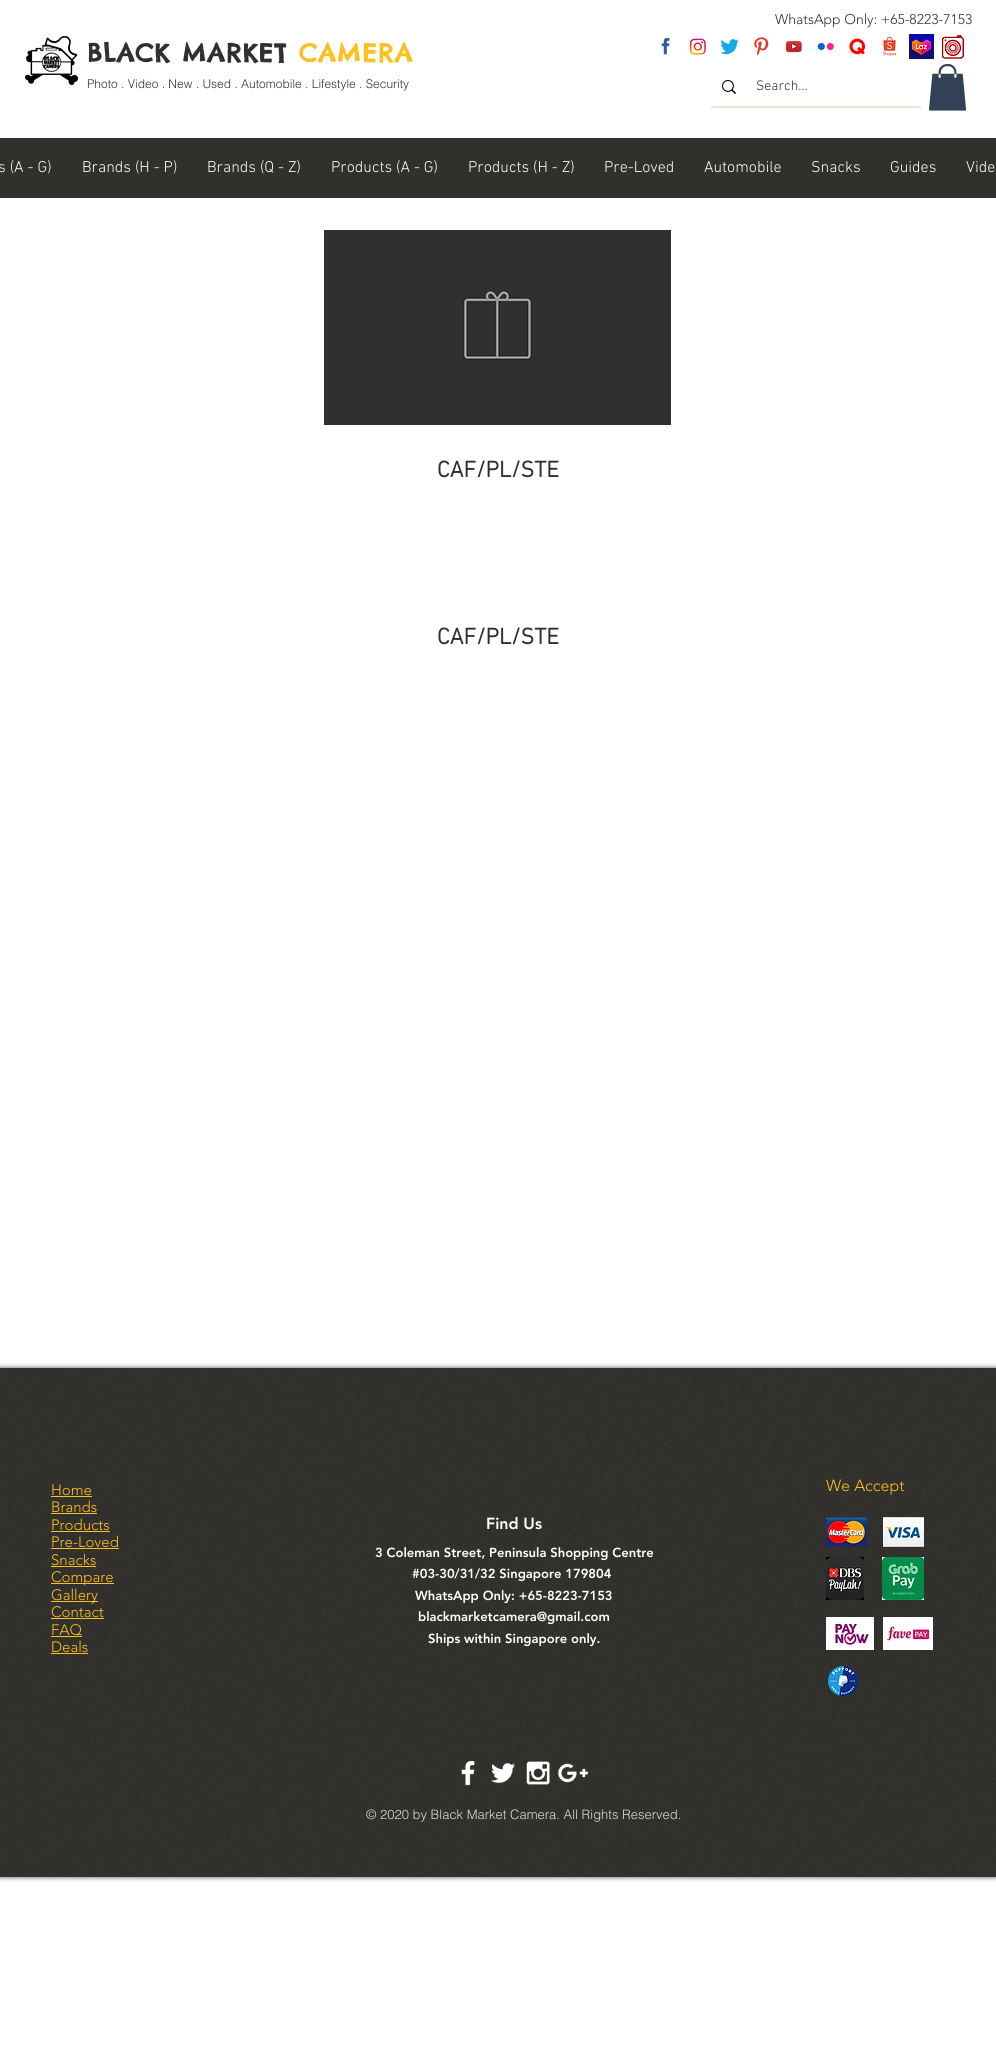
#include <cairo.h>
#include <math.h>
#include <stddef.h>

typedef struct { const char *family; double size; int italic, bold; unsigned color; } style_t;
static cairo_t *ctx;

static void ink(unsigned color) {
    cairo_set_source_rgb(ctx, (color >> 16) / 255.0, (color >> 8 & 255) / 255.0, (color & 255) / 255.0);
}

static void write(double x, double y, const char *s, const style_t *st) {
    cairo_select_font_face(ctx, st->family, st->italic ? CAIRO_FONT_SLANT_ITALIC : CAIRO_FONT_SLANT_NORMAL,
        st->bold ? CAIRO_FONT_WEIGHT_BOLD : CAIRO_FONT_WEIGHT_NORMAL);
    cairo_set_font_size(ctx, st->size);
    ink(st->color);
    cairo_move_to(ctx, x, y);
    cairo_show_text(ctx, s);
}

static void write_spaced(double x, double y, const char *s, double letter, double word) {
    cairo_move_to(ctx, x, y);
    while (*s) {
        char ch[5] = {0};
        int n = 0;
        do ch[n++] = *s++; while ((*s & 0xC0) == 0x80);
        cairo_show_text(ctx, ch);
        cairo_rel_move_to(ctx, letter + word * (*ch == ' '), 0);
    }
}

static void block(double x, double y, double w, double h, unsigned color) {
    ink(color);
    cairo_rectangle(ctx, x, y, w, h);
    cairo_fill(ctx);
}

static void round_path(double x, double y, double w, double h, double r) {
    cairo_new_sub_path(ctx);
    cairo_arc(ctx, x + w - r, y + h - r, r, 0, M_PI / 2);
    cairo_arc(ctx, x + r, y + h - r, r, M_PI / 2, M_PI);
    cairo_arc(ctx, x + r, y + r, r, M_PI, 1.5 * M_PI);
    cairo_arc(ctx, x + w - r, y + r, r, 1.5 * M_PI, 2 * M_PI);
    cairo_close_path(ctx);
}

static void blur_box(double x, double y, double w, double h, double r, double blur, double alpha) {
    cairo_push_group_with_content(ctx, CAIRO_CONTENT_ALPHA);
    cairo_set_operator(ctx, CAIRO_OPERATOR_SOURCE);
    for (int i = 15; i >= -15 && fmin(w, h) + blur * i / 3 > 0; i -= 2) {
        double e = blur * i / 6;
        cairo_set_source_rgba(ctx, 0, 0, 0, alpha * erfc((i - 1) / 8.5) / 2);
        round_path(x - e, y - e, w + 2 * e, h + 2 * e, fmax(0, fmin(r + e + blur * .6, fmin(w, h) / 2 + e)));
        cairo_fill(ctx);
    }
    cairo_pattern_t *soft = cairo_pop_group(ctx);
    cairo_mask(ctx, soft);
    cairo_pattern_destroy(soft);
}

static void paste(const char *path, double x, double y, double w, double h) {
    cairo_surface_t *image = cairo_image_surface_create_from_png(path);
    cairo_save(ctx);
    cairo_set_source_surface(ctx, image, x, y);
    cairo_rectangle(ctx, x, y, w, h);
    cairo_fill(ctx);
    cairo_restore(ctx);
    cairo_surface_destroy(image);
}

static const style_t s1 = {"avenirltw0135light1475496 Light", 14, 0, 0, 0x31302c};
static const style_t s2 = {"helvetica Light", 12, 0, 0, 0x31302c};
static const style_t s3 = {"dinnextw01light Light", 14, 0, 0, 0x31302c};
static const style_t s4 = {"dinnextw01light Light", 16, 0, 0, 0xffffff};
static const style_t s5 = {"dinnextw01light", 23, 0, 1, 0x31302c};
static const style_t s6 = {"avenirltw0135light1475496 Light", 15, 0, 0, 0xffc021};
static const style_t s7 = {"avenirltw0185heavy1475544 Black", 16, 0, 0, 0xffffff};
static const style_t s8 = {"avenirltw0185heavy1475544 Black", 13, 0, 0, 0xffffff};
static const style_t s9 = {"avenirltw0135light1475496 Light", 16, 0, 0, 0xffc021};
static const style_t s10 = {"helvetica Light", 13, 0, 0, 0xdbdbdb};

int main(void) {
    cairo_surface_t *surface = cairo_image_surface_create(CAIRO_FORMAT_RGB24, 996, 2067);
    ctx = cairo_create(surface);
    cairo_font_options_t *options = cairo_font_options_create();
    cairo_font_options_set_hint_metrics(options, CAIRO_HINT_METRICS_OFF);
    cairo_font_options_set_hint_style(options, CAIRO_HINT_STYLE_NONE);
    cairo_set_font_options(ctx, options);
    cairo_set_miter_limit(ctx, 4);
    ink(0xffffff);
    cairo_paint(ctx);
    write(775, 24, "WhatsApp Only: +65-8223-7153", &s1);
    paste("pic1.png", 25, 36, 53, 50);
    cairo_select_font_face(ctx, "Chelsea Market", CAIRO_FONT_SLANT_NORMAL, CAIRO_FONT_WEIGHT_BOLD);
    cairo_set_font_size(ctx, 25);
    write_spaced(87, 62, "BLACK MARKET", 1.25, 0);
    ink(0xffc021);
    write_spaced(299, 62, "CAMERA", 1.25, 0);
    paste("pic2.png", 661, 37, 9, 18);
    paste("pic3.png", 689, 38, 17, 17);
    paste("pic4.png", 720, 39, 19, 16);
    paste("pic5.png", 754, 37, 15, 19);
    paste("pic6.png", 785, 40, 17, 13);
    paste("pic7.png", 817, 42, 17, 9);
    paste("pic8.png", 849, 38, 17, 17);
    paste("pic9.png", 882, 36, 15, 21);
    paste("pic10.png", 909, 34, 25, 25);
    paste("pic11.png", 941, 35, 23, 24);
    write(87, 88, "Photo . Video . New . Used . Automobile . Lifestyle . Security", &s2);
    block(711, 106, 210, 2, 0xebe5d6);
    paste("pic12.png", 722, 80, 14, 14);
    write(756, 90, "Search...", &s3);
    paste("pic13.png", 929, 64, 38, 47);
    block(0, 138, 996, 60, 0x31302c);
    write(-2, 172, "s (A - G)", &s4);
    write(82, 172, "Brands (H - P)", &s4);
    write(207, 172, "Brands (Q - Z)", &s4);
    write(331, 172, "Products (A - G)", &s4);
    write(468, 172, "Products (H - Z)", &s4);
    write(604, 172, "Pre-Loved", &s4);
    write(704, 172, "Automobile", &s4);
    write(811, 172, "Snacks", &s4);
    write(890, 172, "Guides", &s4);
    write(966, 172, "Vide", &s4);
    paste("pic14.png", 324, 230, 347, 195);
    write(437, 477, "CAF/PL/STE", &s5);
    write(437, 644, "CAF/PL/STE", &s5);
    ink(0x000000);
    blur_box(0, 1368, 996, 509, 0, 2.5, 0.7);
    block(0, 1368, 996, 509, 0x31302c);
    paste("pic15.png", 0, 1368, 996, 509);
    write(51, 1495, "Home", &s6);
    block(51, 1496, 41, 1, 0xffc021);
    write(51, 1512, "Brands", &s6);
    block(51, 1513, 46, 1, 0xffc021);
    write(51, 1530, "Products", &s6);
    block(51, 1531, 59, 1, 0xffc021);
    write(51, 1547, "Pre-Loved", &s6);
    block(51, 1548, 68, 1, 0xffc021);
    write(51, 1565, "Snacks", &s6);
    block(51, 1566, 45, 1, 0xffc021);
    block(51, 1583, 63, 1, 0xffc021);
    write(51, 1582, "Compare", &s6);
    block(51, 1601, 47, 1, 0xffc021);
    write(51, 1600, "Gallery", &s6);
    write(51, 1617, "Contact", &s6);
    block(51, 1618, 53, 1, 0xffc021);
    write(51, 1635, "FAQ", &s6);
    block(51, 1636, 31, 1, 0xffc021);
    write(51, 1652, "Deals", &s6);
    block(51, 1653, 37, 1, 0xffc021);
    write(486, 1529, "Find Us", &s7);
    write(375, 1557, "3 Coleman Street, Peninsula Shopping Centre", &s8);
    write(412, 1578, "#03-30/31/32 Singapore 179804", &s8);
    write(415, 1600, "WhatsApp Only: +65-8223-7153", &s8);
    write(418, 1621, "blackmarketcamera@gmail.com", &s8);
    write(428, 1643, "Ships within Singapore only.", &s8);
    write(826, 1491, "We Accept", &s9);
    paste("pic16.png", 826, 1517, 41, 30);
    paste("pic17.png", 883, 1517, 41, 30);
    paste("pic18.png", 826, 1557, 38, 43);
    paste("pic19.png", 882, 1557, 42, 43);
    paste("pic20.png", 826, 1617, 48, 33);
    paste("pic21.png", 883, 1617, 50, 33);
    paste("pic22.png", 828, 1666, 30, 30);
    paste("pic23.png", 461, 1760, 14, 26);
    paste("pic24.png", 491, 1763, 25, 20);
    paste("pic25.png", 526, 1761, 24, 24);
    paste("pic26.png", 558, 1763, 31, 20);
    write(366, 1819, "© 2020 by Black Market Camera. All Rights Reserved.", &s10);
    cairo_surface_write_to_png(surface, "screenshot.png");
    cairo_font_options_destroy(options);
    cairo_destroy(ctx);
    cairo_surface_destroy(surface);
    return 0;
}
